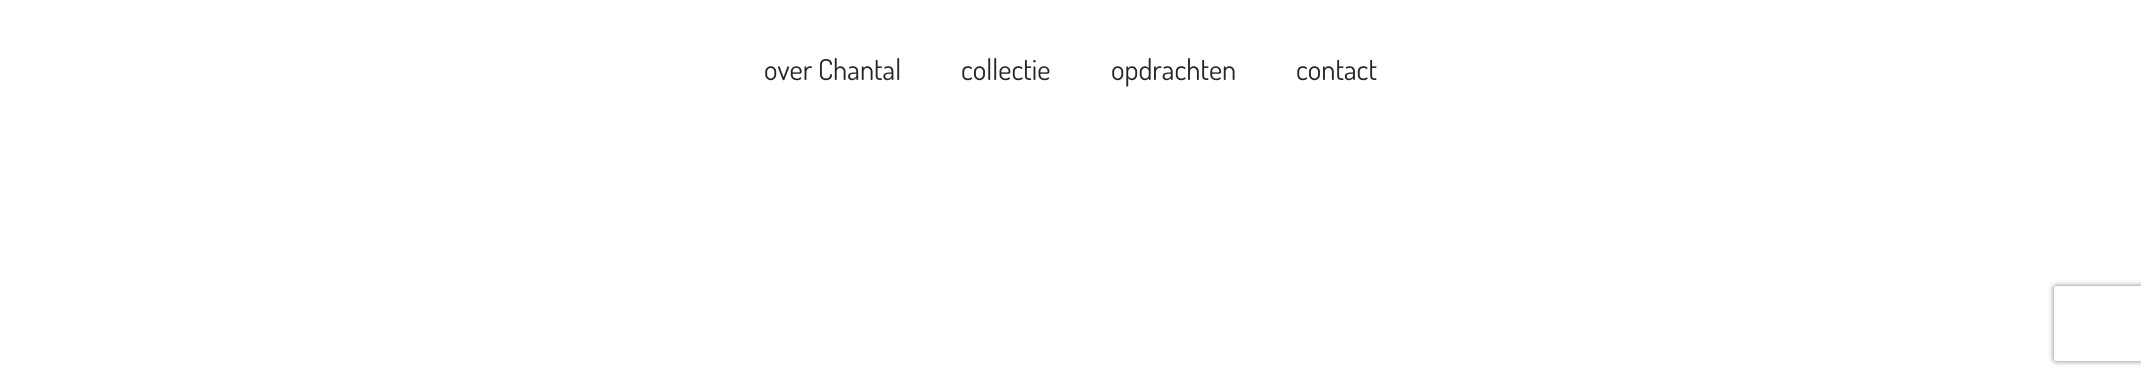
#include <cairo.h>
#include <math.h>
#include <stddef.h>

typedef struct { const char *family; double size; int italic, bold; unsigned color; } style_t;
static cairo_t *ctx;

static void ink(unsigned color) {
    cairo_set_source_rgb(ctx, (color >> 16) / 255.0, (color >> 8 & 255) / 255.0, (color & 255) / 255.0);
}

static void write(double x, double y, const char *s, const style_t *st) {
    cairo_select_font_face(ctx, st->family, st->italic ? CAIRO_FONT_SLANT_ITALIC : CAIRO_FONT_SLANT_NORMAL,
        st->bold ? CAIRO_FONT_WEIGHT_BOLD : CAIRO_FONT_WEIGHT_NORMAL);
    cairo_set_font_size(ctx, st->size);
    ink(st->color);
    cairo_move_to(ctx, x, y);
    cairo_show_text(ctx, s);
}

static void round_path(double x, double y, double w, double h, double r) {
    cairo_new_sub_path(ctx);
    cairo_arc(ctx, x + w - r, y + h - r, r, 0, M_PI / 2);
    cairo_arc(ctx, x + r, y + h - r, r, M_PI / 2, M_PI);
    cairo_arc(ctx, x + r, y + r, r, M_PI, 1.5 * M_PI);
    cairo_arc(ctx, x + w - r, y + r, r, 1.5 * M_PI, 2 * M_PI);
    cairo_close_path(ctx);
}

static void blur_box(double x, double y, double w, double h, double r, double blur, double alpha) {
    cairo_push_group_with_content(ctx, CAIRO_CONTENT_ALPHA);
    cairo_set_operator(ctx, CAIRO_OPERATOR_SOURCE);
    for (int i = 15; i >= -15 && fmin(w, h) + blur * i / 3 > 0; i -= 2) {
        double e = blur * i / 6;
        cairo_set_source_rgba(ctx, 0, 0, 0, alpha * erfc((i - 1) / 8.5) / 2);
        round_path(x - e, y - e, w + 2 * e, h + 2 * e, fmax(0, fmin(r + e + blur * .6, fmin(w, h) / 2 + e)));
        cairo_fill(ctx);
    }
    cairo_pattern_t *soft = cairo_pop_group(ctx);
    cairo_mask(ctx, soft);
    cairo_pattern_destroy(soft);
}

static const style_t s1 = {"Dosis", 28.75, 0, 0, 0x24272a};

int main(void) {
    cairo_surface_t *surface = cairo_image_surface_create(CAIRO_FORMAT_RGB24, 2141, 378);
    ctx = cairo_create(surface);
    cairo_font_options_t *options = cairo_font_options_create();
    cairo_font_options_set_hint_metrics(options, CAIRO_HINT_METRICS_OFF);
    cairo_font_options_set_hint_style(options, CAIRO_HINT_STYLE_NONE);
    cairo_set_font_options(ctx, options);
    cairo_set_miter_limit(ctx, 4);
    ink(0xffffff);
    cairo_paint(ctx);
    write(764, 80, "over Chantal", &s1);
    write(961, 80, "collectie", &s1);
    write(1111, 80, "opdrachten", &s1);
    write(1296, 80, "contact", &s1);
    cairo_save(ctx);
    cairo_set_fill_rule(ctx, CAIRO_FILL_RULE_EVEN_ODD);
    cairo_new_path(ctx);
    cairo_move_to(ctx, 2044, 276);
    cairo_line_to(ctx, 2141, 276);
    cairo_line_to(ctx, 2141, 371);
    cairo_line_to(ctx, 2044, 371);
    cairo_close_path(ctx);
    cairo_move_to(ctx, 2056.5, 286);
    cairo_line_to(ctx, 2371.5, 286);
    cairo_curve_to(ctx, 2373, 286, 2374, 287, 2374, 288.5);
    cairo_line_to(ctx, 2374, 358.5);
    cairo_curve_to(ctx, 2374, 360, 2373, 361, 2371.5, 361);
    cairo_line_to(ctx, 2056.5, 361);
    cairo_curve_to(ctx, 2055, 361, 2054, 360, 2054, 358.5);
    cairo_line_to(ctx, 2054, 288.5);
    cairo_curve_to(ctx, 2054, 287, 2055, 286, 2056.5, 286);
    cairo_close_path(ctx);
    cairo_clip(ctx);
    ink(0x808080);
    blur_box(2054, 286, 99, 75, 2.5, 3, 1);
    cairo_restore(ctx);
    cairo_surface_write_to_png(surface, "screenshot.png");
    cairo_font_options_destroy(options);
    cairo_destroy(ctx);
    cairo_surface_destroy(surface);
    return 0;
}
